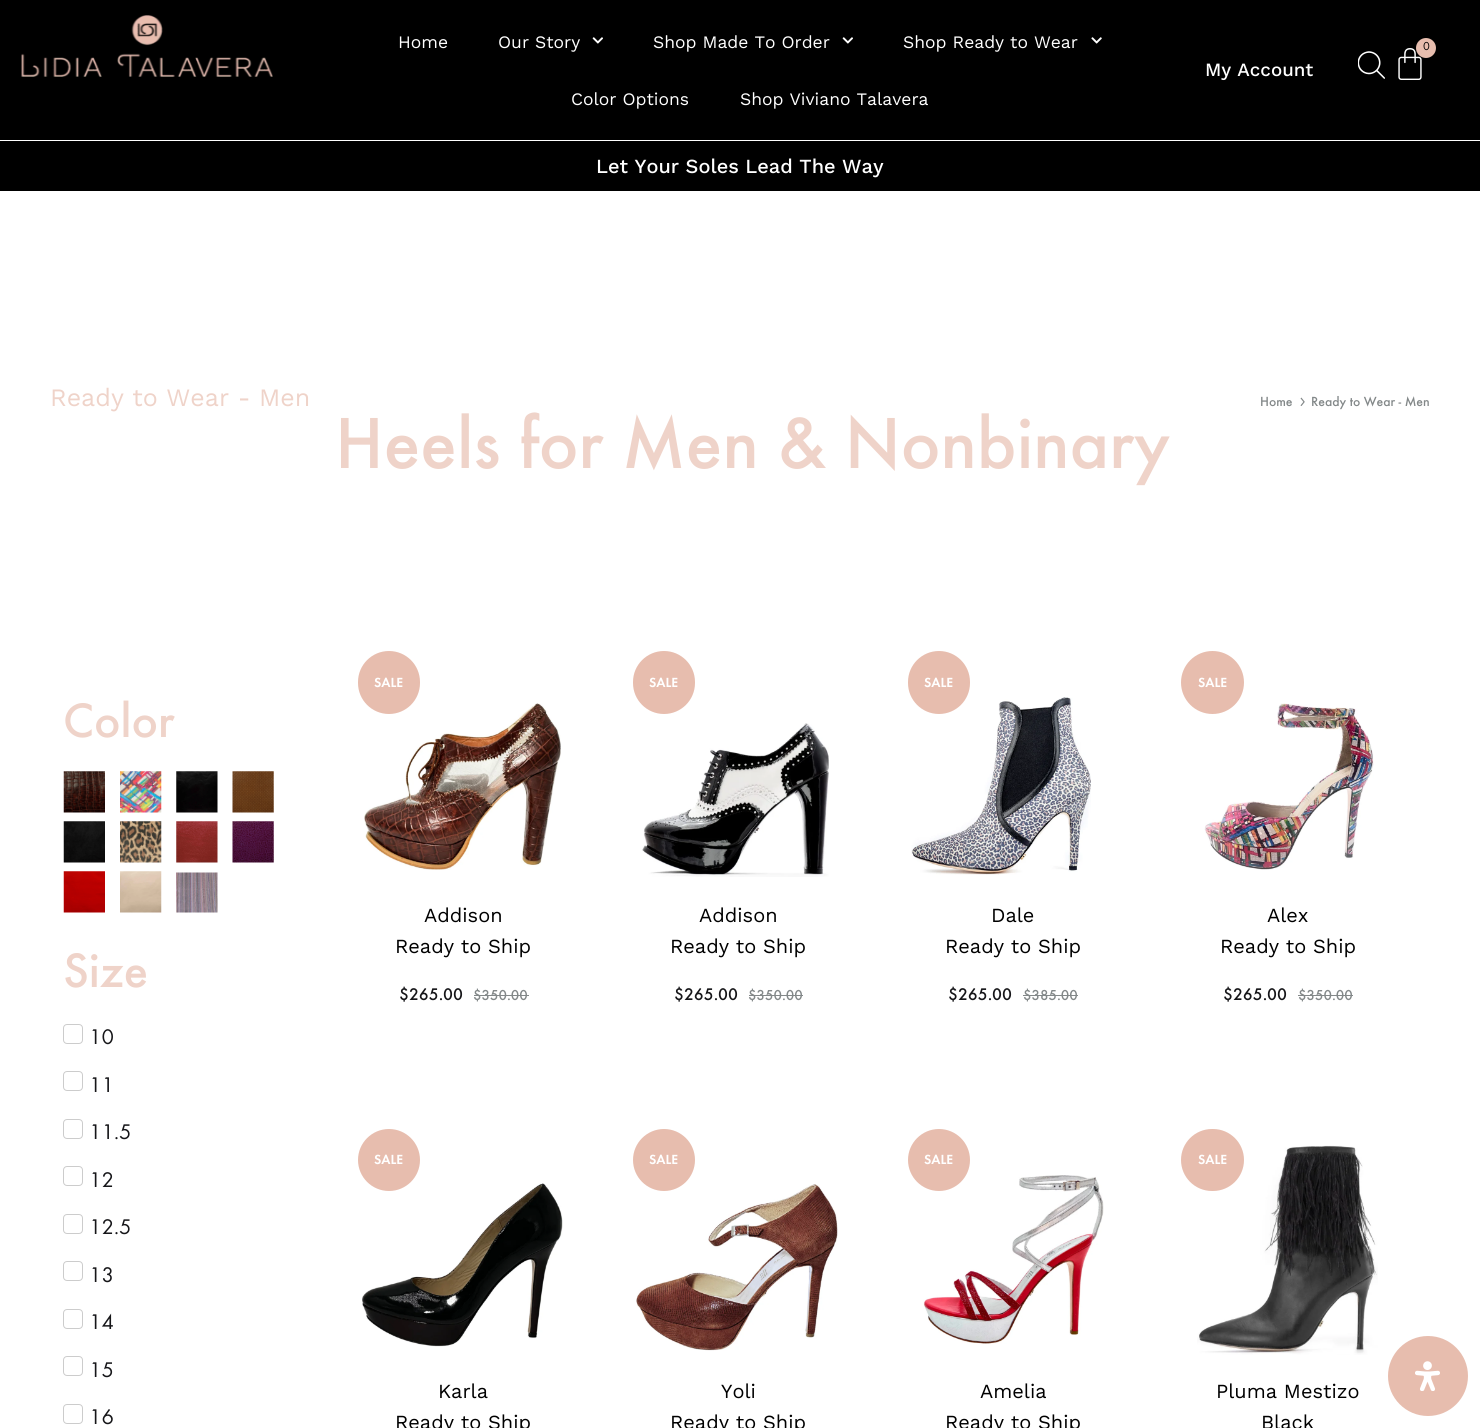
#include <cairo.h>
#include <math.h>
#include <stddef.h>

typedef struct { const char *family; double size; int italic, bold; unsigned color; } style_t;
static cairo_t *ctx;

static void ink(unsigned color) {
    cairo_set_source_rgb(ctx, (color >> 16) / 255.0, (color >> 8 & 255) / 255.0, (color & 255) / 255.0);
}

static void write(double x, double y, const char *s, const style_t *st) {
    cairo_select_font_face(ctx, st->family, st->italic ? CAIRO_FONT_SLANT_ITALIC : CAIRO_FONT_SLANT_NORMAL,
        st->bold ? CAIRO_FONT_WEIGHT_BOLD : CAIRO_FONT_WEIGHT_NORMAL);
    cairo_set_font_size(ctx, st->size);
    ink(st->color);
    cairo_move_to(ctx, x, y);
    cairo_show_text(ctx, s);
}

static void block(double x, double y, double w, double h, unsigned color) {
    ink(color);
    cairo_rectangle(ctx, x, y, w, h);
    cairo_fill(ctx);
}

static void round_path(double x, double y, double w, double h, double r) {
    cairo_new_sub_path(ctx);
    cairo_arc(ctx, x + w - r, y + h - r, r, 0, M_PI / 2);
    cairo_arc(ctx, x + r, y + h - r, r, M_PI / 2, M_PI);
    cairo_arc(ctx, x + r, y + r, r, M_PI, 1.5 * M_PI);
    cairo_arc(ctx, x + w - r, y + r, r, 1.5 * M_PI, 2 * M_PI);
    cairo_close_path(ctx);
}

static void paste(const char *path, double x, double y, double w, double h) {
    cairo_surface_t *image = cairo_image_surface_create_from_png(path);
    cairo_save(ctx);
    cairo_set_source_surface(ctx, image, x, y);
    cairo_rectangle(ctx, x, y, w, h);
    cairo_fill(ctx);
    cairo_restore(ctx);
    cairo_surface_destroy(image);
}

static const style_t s1 = {"Work Sans", 17.5, 0, 0, 0xffffff};
static const style_t s2 = {"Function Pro", 12, 0, 0, 0x000000};
static const style_t s3 = {"Work Sans Medium", 18.75, 0, 0, 0xffffff};
static const style_t s4 = {"Work Sans Medium", 20, 0, 0, 0xffffff};
static const style_t s5 = {"Work Sans", 25, 0, 0, 0xefd3c9};
static const style_t s6 = {"Function Pro Medium", 13.75, 0, 0, 0x838889};
static const style_t s7 = {"Function Pro Medium", 75, 0, 0, 0xefd3c9};
static const style_t s8 = {"Function Pro Medium", 50, 0, 0, 0xefd3c9};
static const style_t s9 = {"Function Pro", 22, 0, 0, 0x161619};
static const style_t s10 = {"Function Pro SemiBold", 13.75, 0, 0, 0xffffff};
static const style_t s11 = {"Work Sans", 20, 0, 0, 0x000000};
static const style_t s12 = {"Function Pro Medium", 17.5, 0, 0, 0x161619};
static const style_t s13 = {"Function Pro Medium", 15, 0, 0, 0x838889};

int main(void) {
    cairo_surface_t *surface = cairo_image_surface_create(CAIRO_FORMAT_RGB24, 1480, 1428);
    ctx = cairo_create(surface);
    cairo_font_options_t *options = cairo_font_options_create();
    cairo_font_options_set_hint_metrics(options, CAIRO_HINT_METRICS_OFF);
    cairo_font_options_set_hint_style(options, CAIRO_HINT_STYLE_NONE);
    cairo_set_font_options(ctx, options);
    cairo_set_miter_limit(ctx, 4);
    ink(0xffffff);
    cairo_paint(ctx);
    block(0, 0, 1480, 191, 0x000000);
    paste("pic1.png", 21, 15, 252, 62);
    write(398, 48, "Home", &s1);
    write(498, 48, "Our Story", &s1);
    paste("pic2.png", 592, 37, 11, 7);
    write(653, 48, "Shop Made To Order", &s1);
    paste("pic2.png", 842, 37, 11, 7);
    write(903, 48, "Shop Ready to Wear", &s1);
    paste("pic3.png", 1091, 37, 11, 7);
    write(571, 105, "Color Options", &s1);
    write(740, 105, "Shop Viviano Talavera", &s1);
    paste("pic4.png", 1398, 48, 24, 32);
    ink(0xe7bdae);
    cairo_arc(ctx, 1426, 48, 10, 0, 2 * M_PI);
    cairo_fill(ctx);
    write(1423, 50, "0", &s2);
    write(1205, 76, "My Account", &s3);
    paste("pic5.png", 1358, 51, 27, 28);
    block(0, 140, 1480, 1, 0xffffff);
    write(596, 173, "Let Your Soles Lead The Way", &s4);
    write(50, 406, "Ready to Wear - Men", &s5);
    write(1260, 406, "Home", &s6);
    paste("pic6.png", 1300, 397, 5, 9);
    write(1311, 406, "Ready to Wear - Men", &s6);
    write(335, 468, "Heels for Men & Nonbinary", &s7);
    write(63, 737, "Color", &s8);
    paste("pic7.png", 63, 771, 42, 42);
    paste("pic8.png", 120, 771, 42, 42);
    paste("pic9.png", 176, 771, 42, 42);
    paste("pic10.png", 232, 771, 42, 42);
    paste("pic11.png", 63, 821, 42, 42);
    paste("pic12.png", 120, 821, 42, 42);
    paste("pic13.png", 176, 821, 42, 42);
    paste("pic14.png", 232, 821, 42, 42);
    paste("pic15.png", 63, 871, 42, 42);
    paste("pic16.png", 120, 871, 42, 42);
    paste("pic17.png", 176, 872, 42, 41);
    write(63, 987, "Size", &s8);
    round_path(63.5, 1024.5, 19, 19, 3.5);
    ink(0xcccccc);
    cairo_set_line_width(ctx, 1);
    cairo_stroke(ctx);
    write(89, 1044, "10", &s9);
    round_path(63.5, 1071.5, 19, 19, 3.5);
    ink(0xcccccc);
    cairo_stroke(ctx);
    write(89, 1092, "11", &s9);
    round_path(63.5, 1119.5, 19, 19, 3.5);
    ink(0xcccccc);
    cairo_stroke(ctx);
    write(89, 1139, "11.5", &s9);
    round_path(63.5, 1166.5, 19, 19, 3.5);
    ink(0xcccccc);
    cairo_stroke(ctx);
    write(89, 1187, "12", &s9);
    round_path(63.5, 1214.5, 19, 19, 3.5);
    ink(0xcccccc);
    cairo_stroke(ctx);
    write(89, 1234, "12.5", &s9);
    round_path(63.5, 1261.5, 19, 19, 3.5);
    ink(0xcccccc);
    cairo_stroke(ctx);
    write(89, 1282, "13", &s9);
    round_path(63.5, 1309.5, 19, 19, 3.5);
    ink(0xcccccc);
    cairo_stroke(ctx);
    write(89, 1329, "14", &s9);
    round_path(63.5, 1356.5, 19, 19, 3.5);
    ink(0xcccccc);
    cairo_stroke(ctx);
    write(89, 1377, "15", &s9);
    round_path(63.5, 1404.5, 19, 19, 3.5);
    ink(0xcccccc);
    cairo_stroke(ctx);
    write(89, 1424, "16", &s9);
    paste("pic18.png", 364, 703, 197, 167);
    ink(0xe7bdae);
    round_path(358, 651, 62, 63, 31);
    cairo_fill(ctx);
    write(374, 687, "SALE", &s10);
    write(424, 922, "Addison", &s11);
    write(395, 953, "Ready to Ship", &s11);
    write(399, 1000, "$265.00", &s12);
    write(473, 1000, "$350.00", &s13);
    block(474, 995, 55, 1, 0x838889);
    ink(0xe7bdae);
    round_path(633, 651, 62, 63, 31);
    cairo_fill(ctx);
    write(649, 687, "SALE", &s10);
    paste("pic19.png", 642, 723, 187, 154);
    write(699, 922, "Addison", &s11);
    write(670, 953, "Ready to Ship", &s11);
    write(674, 1000, "$265.00", &s12);
    write(748, 1000, "$350.00", &s13);
    block(749, 995, 54, 1, 0x838889);
    paste("pic20.png", 911, 697, 180, 178);
    ink(0xe7bdae);
    round_path(908, 651, 62, 63, 31);
    cairo_fill(ctx);
    write(924, 687, "SALE", &s10);
    write(991, 922, "Dale", &s11);
    write(945, 953, "Ready to Ship", &s11);
    write(948, 1000, "$265.00", &s12);
    write(1023, 1000, "$385.00", &s13);
    block(1023, 995, 55, 1, 0x838889);
    paste("pic21.png", 1204, 703, 170, 167);
    ink(0xe7bdae);
    cairo_arc(ctx, 1212.5, 682.5, 31.5, 0, 2 * M_PI);
    cairo_fill(ctx);
    write(1198, 687, "SALE", &s10);
    write(1267, 922, "Alex", &s11);
    write(1220, 953, "Ready to Ship", &s11);
    write(1223, 1000, "$265.00", &s12);
    write(1298, 1000, "$350.00", &s13);
    block(1298, 995, 55, 1, 0x838889);
    paste("pic22.png", 362, 1183, 201, 164);
    ink(0xe7bdae);
    cairo_arc(ctx, 389, 1160, 31, 0, 2 * M_PI);
    cairo_fill(ctx);
    write(374, 1164, "SALE", &s10);
    write(438, 1398, "Karla", &s11);
    write(395, 1429, "Ready to Ship", &s11);
    paste("pic23.png", 636, 1184, 202, 167);
    ink(0xe7bdae);
    cairo_arc(ctx, 664, 1160, 31, 0, 2 * M_PI);
    cairo_fill(ctx);
    write(649, 1164, "SALE", &s10);
    write(721, 1398, "Yoli", &s11);
    write(670, 1429, "Ready to Ship", &s11);
    paste("pic24.png", 923, 1175, 181, 169);
    ink(0xe7bdae);
    cairo_arc(ctx, 939, 1160, 31, 0, 2 * M_PI);
    cairo_fill(ctx);
    write(924, 1164, "SALE", &s10);
    write(980, 1398, "Amelia", &s11);
    write(945, 1429, "Ready to Ship", &s11);
    paste("pic25.png", 1197, 1145, 181, 210);
    ink(0xe7bdae);
    round_path(1181, 1129, 63, 62, 31);
    cairo_fill(ctx);
    write(1198, 1164, "SALE", &s10);
    write(1216, 1398, "Pluma Mestizo", &s11);
    write(1261, 1429, "Black", &s11);
    ink(0xe7bdae);
    cairo_new_path(ctx);
    cairo_arc(ctx, 1428, 1376, 40, 0, 2 * M_PI);
    cairo_fill(ctx);
    paste("pic26.png", 1415, 1361, 25, 30);
    cairo_surface_write_to_png(surface, "screenshot.png");
    cairo_font_options_destroy(options);
    cairo_destroy(ctx);
    cairo_surface_destroy(surface);
    return 0;
}
